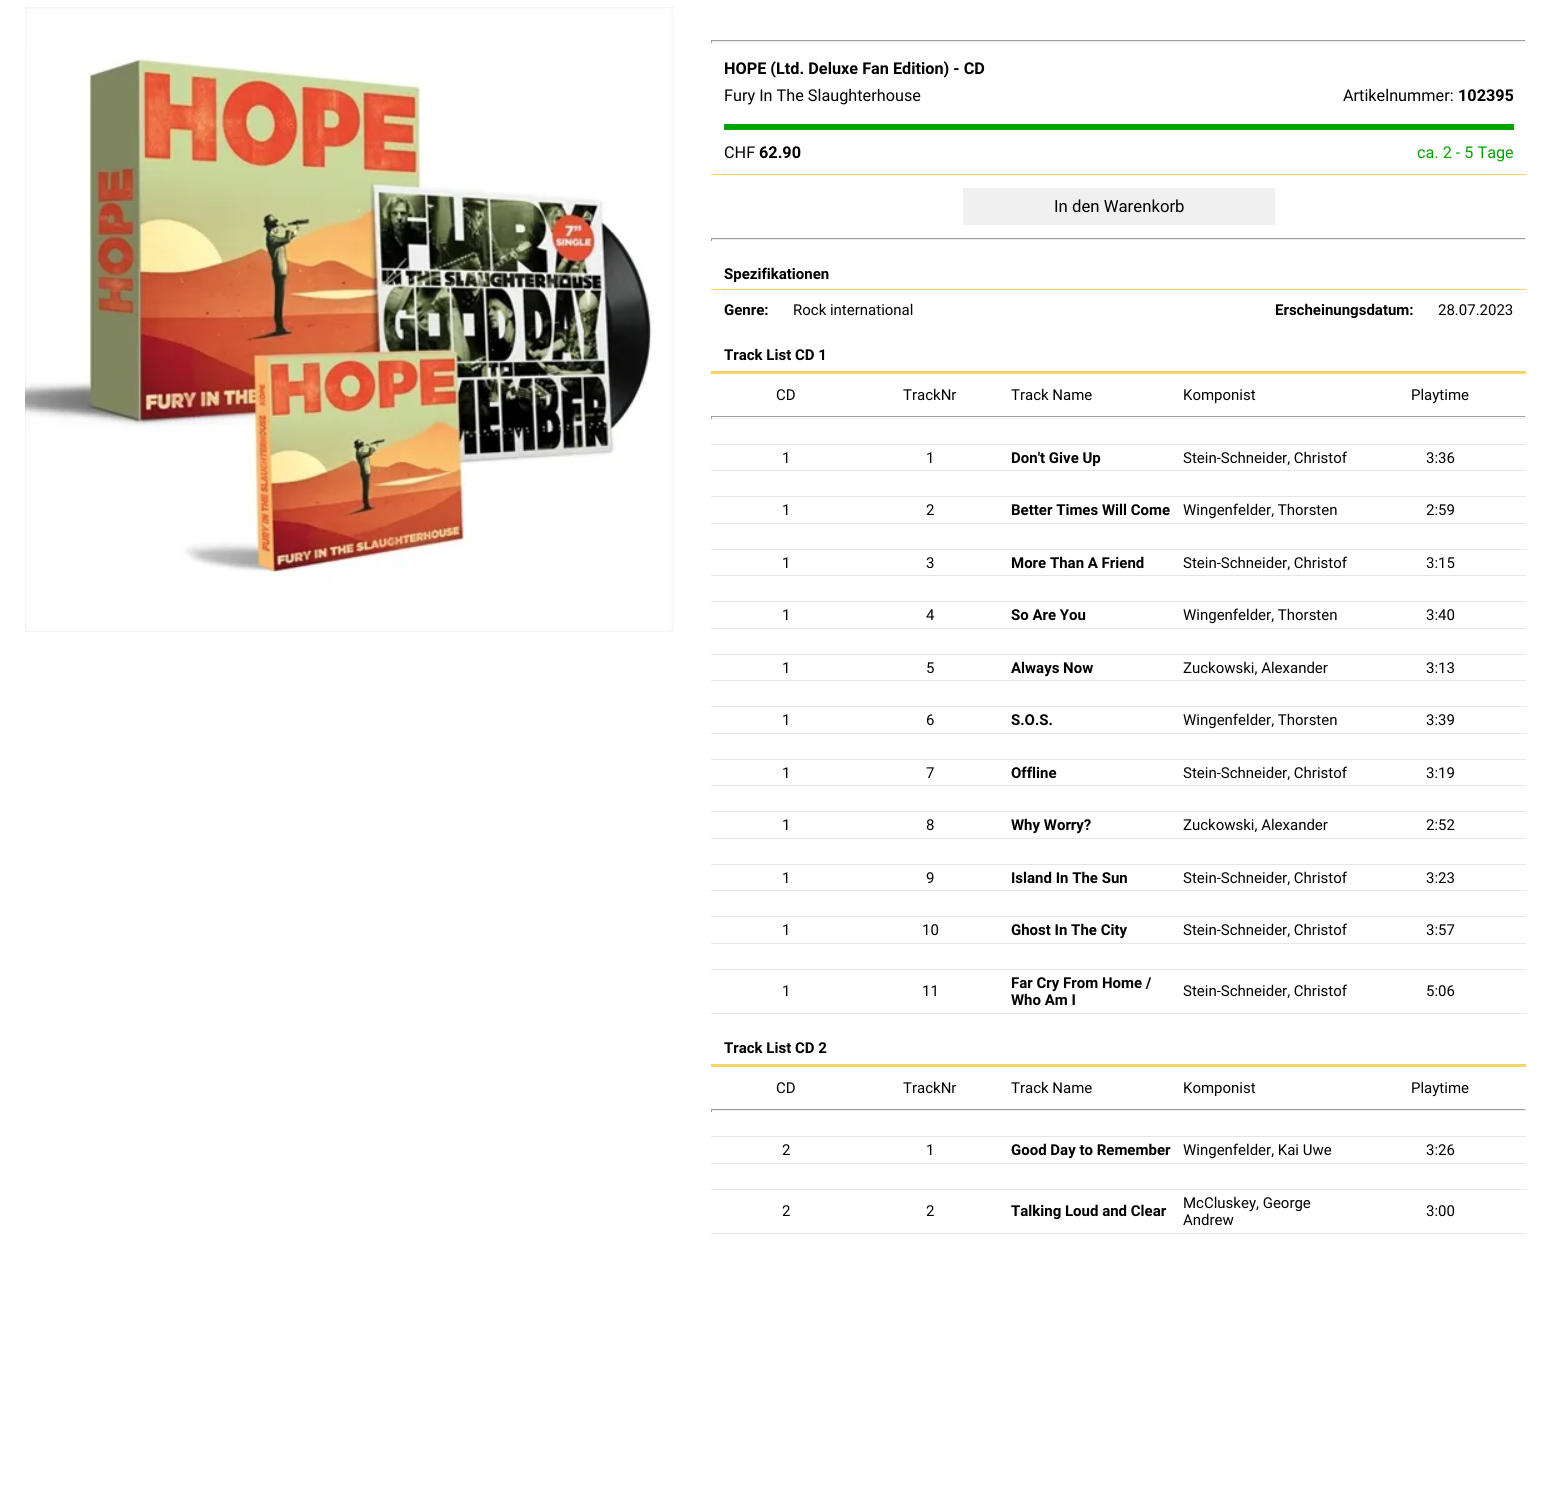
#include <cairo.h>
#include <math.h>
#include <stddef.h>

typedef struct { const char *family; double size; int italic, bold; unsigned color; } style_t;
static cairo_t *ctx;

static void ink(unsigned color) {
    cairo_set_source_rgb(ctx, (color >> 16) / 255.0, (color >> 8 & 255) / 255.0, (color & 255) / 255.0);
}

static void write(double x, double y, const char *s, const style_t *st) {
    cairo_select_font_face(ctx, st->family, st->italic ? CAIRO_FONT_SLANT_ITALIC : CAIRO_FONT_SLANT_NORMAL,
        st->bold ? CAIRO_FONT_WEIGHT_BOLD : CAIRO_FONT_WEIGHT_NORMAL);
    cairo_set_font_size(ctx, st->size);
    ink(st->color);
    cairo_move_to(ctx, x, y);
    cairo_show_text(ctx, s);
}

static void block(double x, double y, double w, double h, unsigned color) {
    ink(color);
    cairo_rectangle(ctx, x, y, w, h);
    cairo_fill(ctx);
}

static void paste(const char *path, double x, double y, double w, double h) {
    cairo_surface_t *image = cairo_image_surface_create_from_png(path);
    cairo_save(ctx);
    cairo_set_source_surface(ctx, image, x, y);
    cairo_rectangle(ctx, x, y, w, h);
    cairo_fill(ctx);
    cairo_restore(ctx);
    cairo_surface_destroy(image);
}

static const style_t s1 = {"Roboto", 16.25, 0, 1, 0x000000};
static const style_t s2 = {"Roboto", 16.25, 0, 0, 0x000000};
static const style_t s3 = {"Roboto", 16.25, 0, 0, 0x00a400};
static const style_t s4 = {"Roboto", 16.75, 0, 0, 0x000000};
static const style_t s5 = {"Roboto", 15, 0, 1, 0x000000};
static const style_t s6 = {"Roboto", 15, 0, 0, 0x000000};

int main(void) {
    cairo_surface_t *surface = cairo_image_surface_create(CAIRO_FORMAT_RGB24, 1563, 1511);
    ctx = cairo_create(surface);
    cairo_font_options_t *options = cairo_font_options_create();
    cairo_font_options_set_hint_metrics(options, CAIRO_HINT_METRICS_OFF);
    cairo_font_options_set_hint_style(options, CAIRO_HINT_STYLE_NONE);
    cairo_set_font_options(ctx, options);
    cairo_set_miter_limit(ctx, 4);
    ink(0xffffff);
    cairo_paint(ctx);
    paste("pic1.png", 25, 7, 649, 625);
    block(711, 40, 815, 1, 0x9f9f9f);
    block(1525, 40, 1, 3, 0xeeeeee);
    block(711, 41, 815, 1, 0xeeeeee);
    block(711, 40, 1, 3, 0x9f9f9f);
    write(724, 74, "HOPE (Ltd. Deluxe Fan Edition) - CD", &s1);
    write(724, 101, "Fury In The Slaughterhouse", &s2);
    write(1343, 101, "Artikelnummer:", &s2);
    write(1458, 101, "102395", &s1);
    block(724, 124, 790, 6, 0x00a400);
    block(711, 174, 815, 1, 0xfad366);
    write(724, 158, "CHF", &s2);
    write(759, 158, "62.90", &s1);
    write(1417, 158, "ca. 2 - 5 Tage", &s3);
    block(963, 188, 312, 37, 0xf0f0f0);
    write(1054, 212, "In den Warenkorb", &s4);
    block(711, 238, 815, 1, 0x9f9f9f);
    block(1525, 238, 1, 3, 0xeeeeee);
    block(711, 239, 815, 1, 0xeeeeee);
    block(711, 238, 1, 3, 0x9f9f9f);
    write(724, 279, "Spezifikationen", &s5);
    block(711, 289, 815, 1, 0xfad366);
    write(724, 315, "Genre:", &s5);
    write(793, 315, "Rock international", &s6);
    write(1275, 315, "Erscheinungsdatum:", &s5);
    write(1438, 315, "28.07.2023", &s6);
    write(724, 360, "Track List CD 1", &s5);
    block(711, 371, 815, 3, 0xfad366);
    write(776, 400, "CD", &s6);
    write(903, 400, "TrackNr", &s6);
    write(1011, 400, "Track Name", &s6);
    write(1183, 400, "Komponist", &s6);
    write(1411, 400, "Playtime", &s6);
    block(711, 416, 815, 1, 0x9f9f9f);
    block(1525, 416, 1, 3, 0xeeeeee);
    block(711, 418, 815, 1, 0xeeeeee);
    block(711, 416, 1, 3, 0x9f9f9f);
    block(711, 444, 815, 1, 0xe6e6e6);
    block(711, 470, 815, 1, 0xe6e6e6);
    write(782, 463, "1", &s6);
    write(926, 463, "1", &s6);
    write(1011, 463, "Don't Give Up", &s5);
    write(1183, 463, "Stein-Schneider, Christof", &s6);
    write(1426, 463, "3:36", &s6);
    block(711, 496, 815, 1, 0xe6e6e6);
    block(711, 523, 815, 1, 0xe6e6e6);
    write(782, 515, "1", &s6);
    write(926, 515, "2", &s6);
    write(1011, 515, "Better Times Will Come", &s5);
    write(1183, 515, "Wingenfelder, Thorsten", &s6);
    write(1426, 515, "2:59", &s6);
    block(711, 549, 815, 1, 0xe6e6e6);
    block(711, 575, 815, 1, 0xe6e6e6);
    write(782, 568, "1", &s6);
    write(926, 568, "3", &s6);
    write(1011, 568, "More Than A Friend", &s5);
    write(1183, 568, "Stein-Schneider, Christof", &s6);
    write(1426, 568, "3:15", &s6);
    block(711, 601, 815, 1, 0xe6e6e6);
    block(711, 628, 815, 1, 0xe6e6e6);
    write(782, 620, "1", &s6);
    write(926, 620, "4", &s6);
    write(1011, 620, "So Are You", &s5);
    write(1183, 620, "Wingenfelder, Thorsten", &s6);
    write(1426, 620, "3:40", &s6);
    block(711, 654, 815, 1, 0xe6e6e6);
    block(711, 680, 815, 1, 0xe6e6e6);
    write(782, 673, "1", &s6);
    write(926, 673, "5", &s6);
    write(1011, 673, "Always Now", &s5);
    write(1183, 673, "Zuckowski, Alexander", &s6);
    write(1426, 673, "3:13", &s6);
    block(711, 706, 815, 1, 0xe6e6e6);
    block(711, 733, 815, 1, 0xe6e6e6);
    write(782, 725, "1", &s6);
    write(926, 725, "6", &s6);
    write(1011, 725, "S.O.S.", &s5);
    write(1183, 725, "Wingenfelder, Thorsten", &s6);
    write(1426, 725, "3:39", &s6);
    block(711, 759, 815, 1, 0xe6e6e6);
    block(711, 785, 815, 1, 0xe6e6e6);
    write(782, 778, "1", &s6);
    write(926, 778, "7", &s6);
    write(1011, 778, "Offline", &s5);
    write(1183, 778, "Stein-Schneider, Christof", &s6);
    write(1426, 778, "3:19", &s6);
    block(711, 811, 815, 1, 0xe6e6e6);
    block(711, 838, 815, 1, 0xe6e6e6);
    write(782, 830, "1", &s6);
    write(926, 830, "8", &s6);
    write(1011, 830, "Why Worry?", &s5);
    write(1183, 830, "Zuckowski, Alexander", &s6);
    write(1426, 830, "2:52", &s6);
    block(711, 864, 815, 1, 0xe6e6e6);
    block(711, 890, 815, 1, 0xe6e6e6);
    write(782, 883, "1", &s6);
    write(926, 883, "9", &s6);
    write(1011, 883, "Island In The Sun", &s5);
    write(1183, 883, "Stein-Schneider, Christof", &s6);
    write(1426, 883, "3:23", &s6);
    block(711, 916, 815, 1, 0xe6e6e6);
    block(711, 943, 815, 1, 0xe6e6e6);
    write(782, 935, "1", &s6);
    write(922, 935, "10", &s6);
    write(1011, 935, "Ghost In The City", &s5);
    write(1183, 935, "Stein-Schneider, Christof", &s6);
    write(1426, 935, "3:57", &s6);
    block(711, 969, 815, 1, 0xe6e6e6);
    block(711, 1013, 815, 1, 0xe6e6e6);
    write(782, 996, "1", &s6);
    write(922, 996, "11", &s6);
    write(1011, 988, "Far Cry From Home /", &s5);
    write(1011, 1005, "Who Am I", &s5);
    write(1183, 996, "Stein-Schneider, Christof", &s6);
    write(1426, 996, "5:06", &s6);
    write(724, 1053, "Track List CD 2", &s5);
    block(711, 1064, 815, 3, 0xfad366);
    write(776, 1093, "CD", &s6);
    write(903, 1093, "TrackNr", &s6);
    write(1011, 1093, "Track Name", &s6);
    write(1183, 1093, "Komponist", &s6);
    write(1411, 1093, "Playtime", &s6);
    block(711, 1109, 815, 1, 0x9f9f9f);
    block(1525, 1109, 1, 3, 0xeeeeee);
    block(711, 1110, 815, 1, 0xeeeeee);
    block(711, 1109, 1, 3, 0x9f9f9f);
    block(711, 1136, 815, 1, 0xe6e6e6);
    block(711, 1163, 815, 1, 0xe6e6e6);
    write(782, 1155, "2", &s6);
    write(926, 1155, "1", &s6);
    write(1011, 1155, "Good Day to Remember", &s5);
    write(1183, 1155, "Wingenfelder, Kai Uwe", &s6);
    write(1426, 1155, "3:26", &s6);
    block(711, 1189, 815, 1, 0xe6e6e6);
    block(711, 1233, 815, 1, 0xe6e6e6);
    write(782, 1216, "2", &s6);
    write(926, 1216, "2", &s6);
    write(1011, 1216, "Talking Loud and Clear", &s5);
    write(1183, 1208, "McCluskey, George", &s6);
    write(1183, 1225, "Andrew", &s6);
    write(1426, 1216, "3:00", &s6);
    cairo_surface_write_to_png(surface, "screenshot.png");
    cairo_font_options_destroy(options);
    cairo_destroy(ctx);
    cairo_surface_destroy(surface);
    return 0;
}
